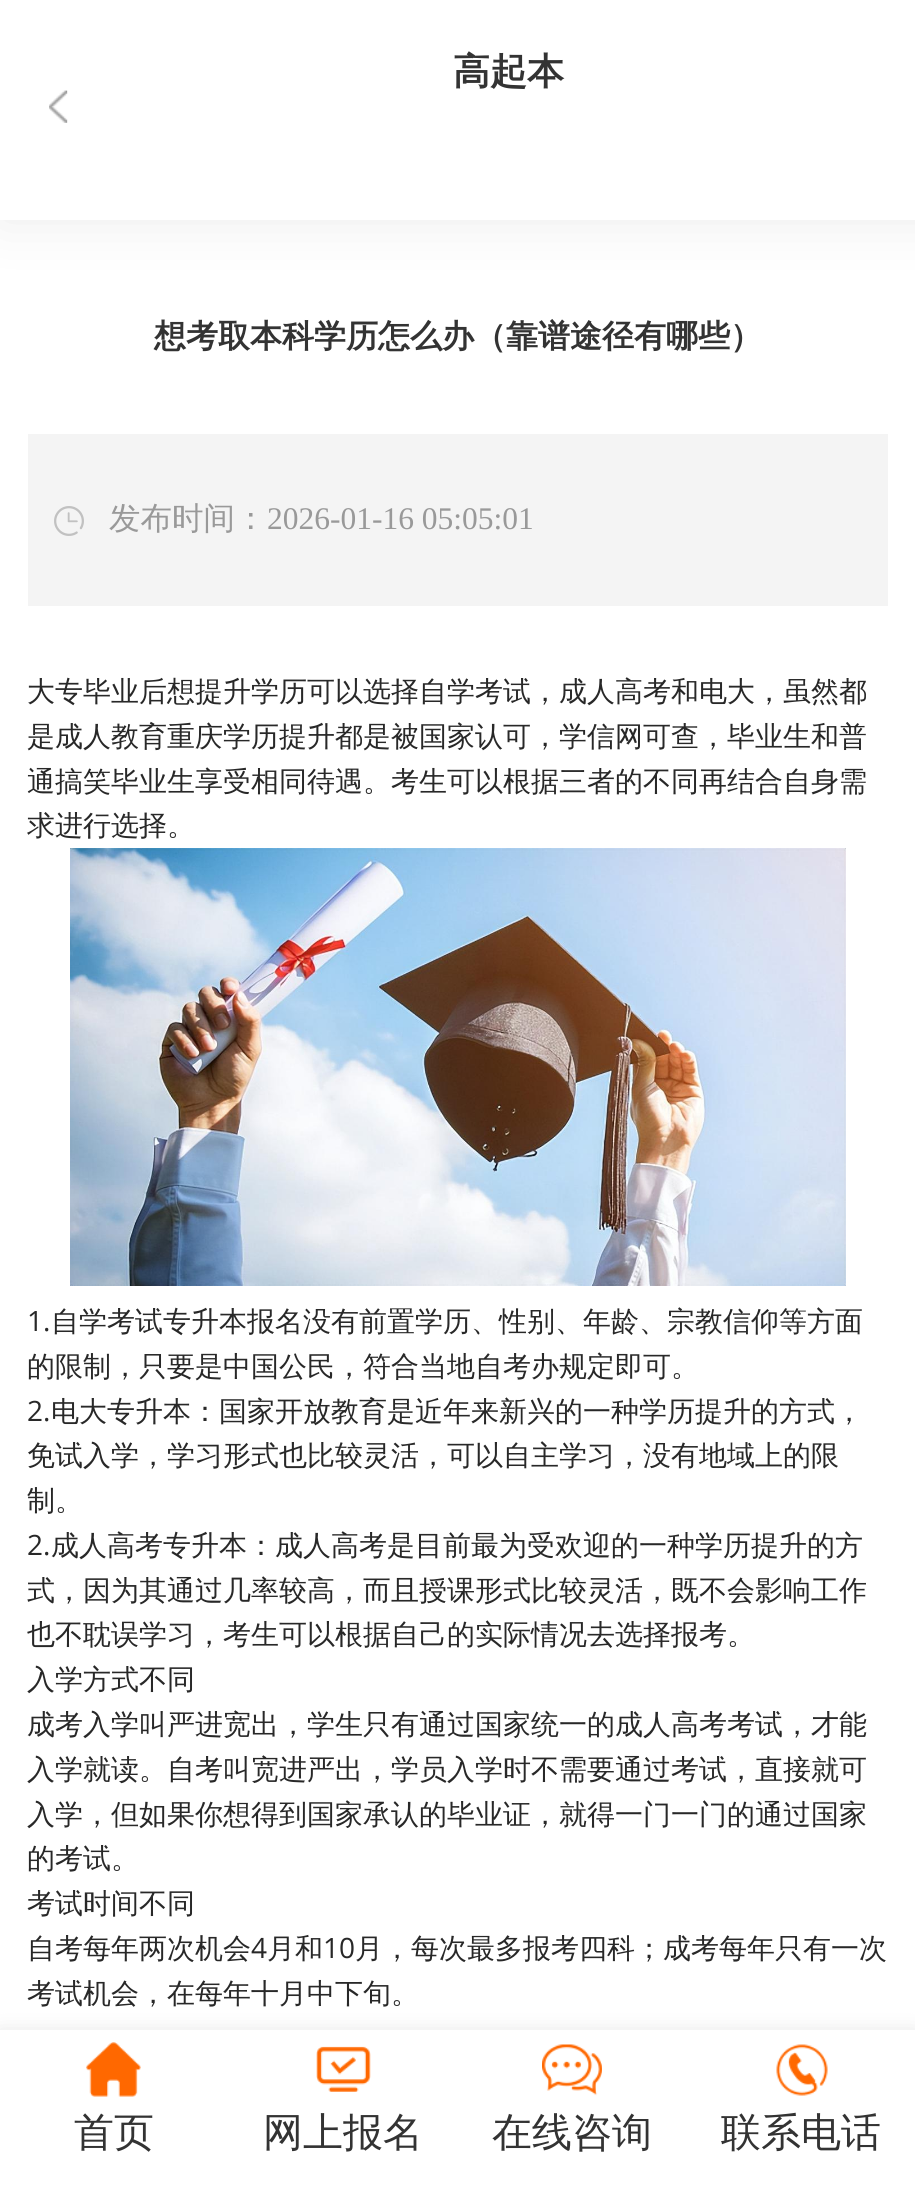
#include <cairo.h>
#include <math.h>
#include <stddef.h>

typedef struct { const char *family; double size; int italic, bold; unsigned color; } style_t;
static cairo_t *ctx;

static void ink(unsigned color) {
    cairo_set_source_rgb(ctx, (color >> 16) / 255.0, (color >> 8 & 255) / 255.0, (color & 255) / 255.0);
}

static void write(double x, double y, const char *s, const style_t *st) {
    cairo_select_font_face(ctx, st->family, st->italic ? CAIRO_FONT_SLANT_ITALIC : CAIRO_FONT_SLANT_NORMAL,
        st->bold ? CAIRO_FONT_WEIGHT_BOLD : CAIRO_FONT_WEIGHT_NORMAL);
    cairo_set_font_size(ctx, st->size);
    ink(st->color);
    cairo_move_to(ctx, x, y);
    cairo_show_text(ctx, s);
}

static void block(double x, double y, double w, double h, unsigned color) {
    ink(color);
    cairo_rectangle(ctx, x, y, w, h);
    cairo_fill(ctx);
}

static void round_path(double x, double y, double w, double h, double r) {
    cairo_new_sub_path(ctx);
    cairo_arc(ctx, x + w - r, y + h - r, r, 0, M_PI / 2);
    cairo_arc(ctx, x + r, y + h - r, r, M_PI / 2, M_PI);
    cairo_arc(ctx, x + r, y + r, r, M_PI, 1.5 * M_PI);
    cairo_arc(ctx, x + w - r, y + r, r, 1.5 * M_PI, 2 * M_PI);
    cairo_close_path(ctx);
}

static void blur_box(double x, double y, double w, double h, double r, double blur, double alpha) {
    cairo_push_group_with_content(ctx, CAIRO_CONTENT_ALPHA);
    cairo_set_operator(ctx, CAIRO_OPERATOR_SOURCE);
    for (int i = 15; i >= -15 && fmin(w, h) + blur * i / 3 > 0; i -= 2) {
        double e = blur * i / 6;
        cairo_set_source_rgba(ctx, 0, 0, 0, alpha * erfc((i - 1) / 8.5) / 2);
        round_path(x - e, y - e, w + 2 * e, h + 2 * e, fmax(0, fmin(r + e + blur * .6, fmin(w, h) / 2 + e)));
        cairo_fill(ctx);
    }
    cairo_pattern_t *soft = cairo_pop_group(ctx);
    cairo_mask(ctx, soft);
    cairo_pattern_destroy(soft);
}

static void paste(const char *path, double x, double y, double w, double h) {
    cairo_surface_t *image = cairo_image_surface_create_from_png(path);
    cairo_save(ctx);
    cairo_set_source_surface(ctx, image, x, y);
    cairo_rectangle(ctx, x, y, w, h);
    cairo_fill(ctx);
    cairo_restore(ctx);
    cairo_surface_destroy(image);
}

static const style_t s1 = {"WenQuanYi Zen Hei", 37, 0, 1, 0x333333};
static const style_t s2 = {"WenQuanYi Zen Hei", 32, 0, 1, 0x333333};
static const style_t s3 = {"WenQuanYi Zen Hei Medium", 31.5, 0, 0, 0x999999};
static const style_t s4 = {"Liberation Serif", 31.5, 0, 0, 0x999999};
static const style_t s5 = {"WenQuanYi Zen Hei Medium", 28, 0, 0, 0x282828};
static const style_t s6 = {"Open Sans", 28, 0, 0, 0x282828};
static const style_t s7 = {"WenQuanYi Zen Hei Medium", 40, 0, 0, 0x333333};

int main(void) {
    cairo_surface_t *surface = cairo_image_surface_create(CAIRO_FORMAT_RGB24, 915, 2186);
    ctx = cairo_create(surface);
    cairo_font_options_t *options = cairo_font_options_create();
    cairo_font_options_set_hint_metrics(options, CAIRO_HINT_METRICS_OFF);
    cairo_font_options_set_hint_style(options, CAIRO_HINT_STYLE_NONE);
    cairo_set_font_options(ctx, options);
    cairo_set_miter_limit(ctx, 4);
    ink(0xffffff);
    cairo_paint(ctx);
    ink(0x626262);
    blur_box(0, 0, 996, 220, 0, 27, 0.13);
    block(0, 0, 915, 220, 0xffffff);
    write(453, 84, "高起本", &s1);
    paste("pic1.png", 49, 90, 19, 33);
    write(154, 347, "想考取本科学历怎么办（靠谱途径有哪些）", &s2);
    block(28, 434, 860, 172, 0xf4f4f4);
    paste("pic2.png", 54, 506, 30, 30);
    write(109, 529, "发布时间：", &s3);
    write(267, 529, "2026-01-16 05:05:01", &s4);
    write(27, 701, "大专毕业后想提升学历可以选择自学考试，成人高考和电大，虽然都", &s5);
    write(27, 746, "是成人教育重庆学历提升都是被国家认可，学信网可查，毕业生和普", &s5);
    write(27, 791, "通搞笑毕业生享受相同待遇。考生可以根据三者的不同再结合自身需", &s5);
    write(27, 835, "求进行选择。", &s5);
    paste("pic3.png", 70, 848, 776, 438);
    write(27, 1331, "1.", &s6);
    write(51, 1331, "自学考试专升本报名没有前置学历、性别、年龄、宗教信仰等方面", &s5);
    write(27, 1376, "的限制，只要是中国公民，符合当地自考办规定即可。", &s5);
    write(27, 1421, "2.", &s6);
    write(51, 1421, "电大专升本：国家开放教育是近年来新兴的一种学历提升的方式，", &s5);
    write(27, 1465, "免试入学，学习形式也比较灵活，可以自主学习，没有地域上的限", &s5);
    write(27, 1510, "制。", &s5);
    write(27, 1555, "2.", &s6);
    write(51, 1555, "成人高考专升本：成人高考是目前最为受欢迎的一种学历提升的方", &s5);
    write(27, 1600, "式，因为其通过几率较高，而且授课形式比较灵活，既不会影响工作", &s5);
    write(27, 1644, "也不耽误学习，考生可以根据自己的实际情况去选择报考。", &s5);
    write(27, 1689, "入学方式不同", &s5);
    write(27, 1734, "成考入学叫严进宽出，学生只有通过国家统一的成人高考考试，才能", &s5);
    write(27, 1779, "入学就读。自考叫宽进严出，学员入学时不需要通过考试，直接就可", &s5);
    write(27, 1824, "入学，但如果你想得到国家承认的毕业证，就得一门一门的通过国家", &s5);
    write(27, 1868, "的考试。", &s5);
    write(27, 1913, "考试时间不同", &s5);
    write(27, 1958, "自考每年两次机会", &s5);
    write(251, 1958, "4", &s6);
    write(267, 1958, "月和", &s5);
    write(323, 1958, "10", &s6);
    write(355, 1958, "月，每次最多报考四科；成考每年只有一次", &s5);
    write(27, 2003, "考试机会，在每年十月中下旬。", &s5);
    ink(0xc9c9c9);
    blur_box(0, 2032, 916, 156, 0, 10, 0.48);
    block(0, 2030, 915, 156, 0xffffff);
    paste("pic4.png", 86, 2042, 55, 55);
    write(74, 2146, "首页", &s7);
    paste("pic5.png", 316, 2046, 55, 46);
    write(263, 2146, "网上报名", &s7);
    paste("pic6.png", 542, 2044, 60, 52);
    write(492, 2146, "在线咨询", &s7);
    paste("pic7.png", 776, 2044, 52, 52);
    write(721, 2146, "联系电话", &s7);
    cairo_surface_write_to_png(surface, "screenshot.png");
    cairo_font_options_destroy(options);
    cairo_destroy(ctx);
    cairo_surface_destroy(surface);
    return 0;
}
